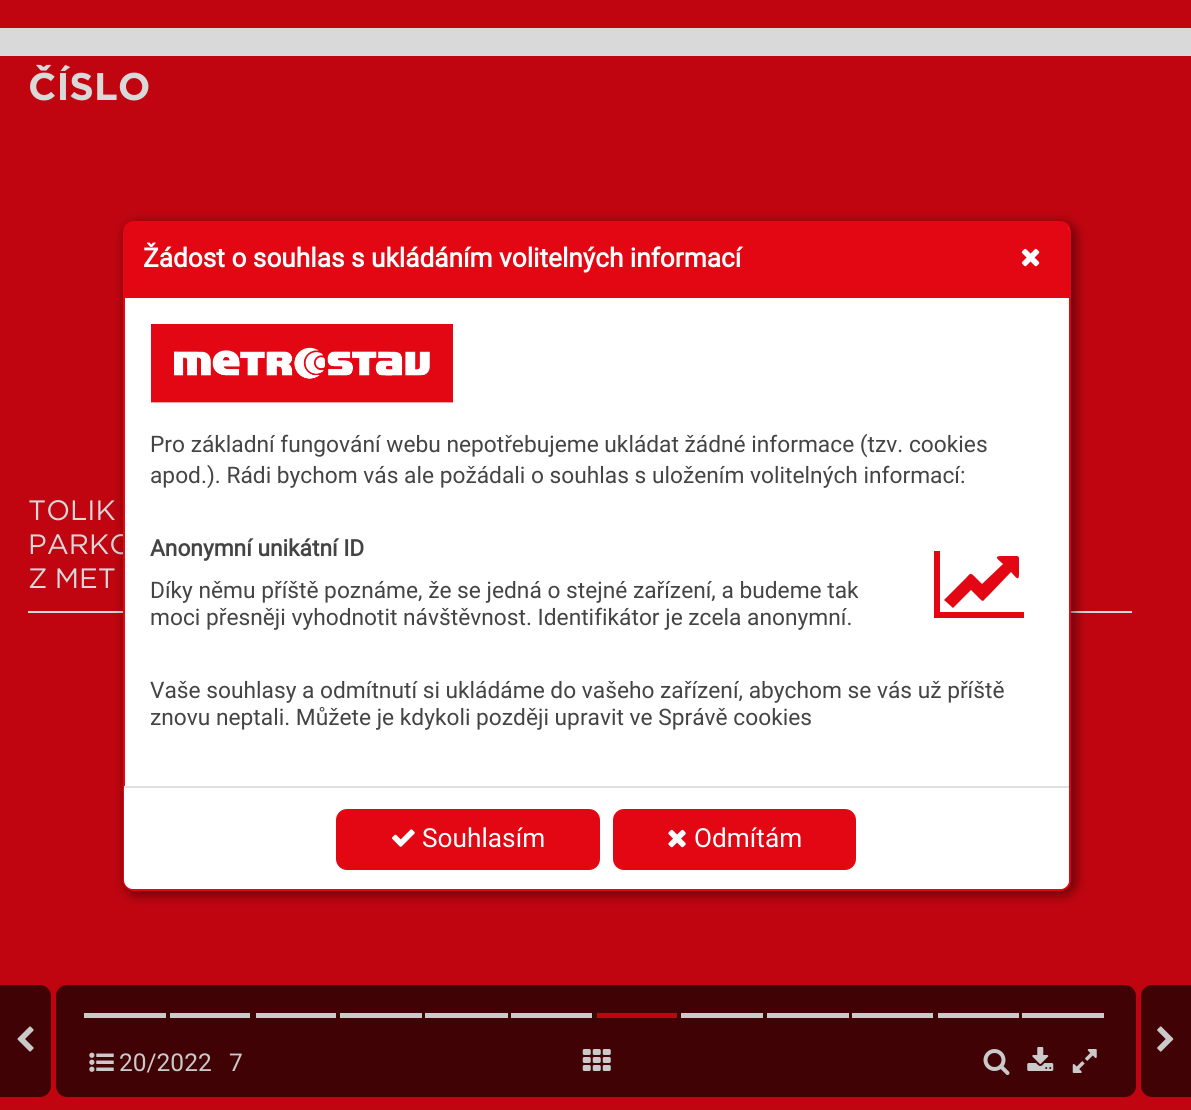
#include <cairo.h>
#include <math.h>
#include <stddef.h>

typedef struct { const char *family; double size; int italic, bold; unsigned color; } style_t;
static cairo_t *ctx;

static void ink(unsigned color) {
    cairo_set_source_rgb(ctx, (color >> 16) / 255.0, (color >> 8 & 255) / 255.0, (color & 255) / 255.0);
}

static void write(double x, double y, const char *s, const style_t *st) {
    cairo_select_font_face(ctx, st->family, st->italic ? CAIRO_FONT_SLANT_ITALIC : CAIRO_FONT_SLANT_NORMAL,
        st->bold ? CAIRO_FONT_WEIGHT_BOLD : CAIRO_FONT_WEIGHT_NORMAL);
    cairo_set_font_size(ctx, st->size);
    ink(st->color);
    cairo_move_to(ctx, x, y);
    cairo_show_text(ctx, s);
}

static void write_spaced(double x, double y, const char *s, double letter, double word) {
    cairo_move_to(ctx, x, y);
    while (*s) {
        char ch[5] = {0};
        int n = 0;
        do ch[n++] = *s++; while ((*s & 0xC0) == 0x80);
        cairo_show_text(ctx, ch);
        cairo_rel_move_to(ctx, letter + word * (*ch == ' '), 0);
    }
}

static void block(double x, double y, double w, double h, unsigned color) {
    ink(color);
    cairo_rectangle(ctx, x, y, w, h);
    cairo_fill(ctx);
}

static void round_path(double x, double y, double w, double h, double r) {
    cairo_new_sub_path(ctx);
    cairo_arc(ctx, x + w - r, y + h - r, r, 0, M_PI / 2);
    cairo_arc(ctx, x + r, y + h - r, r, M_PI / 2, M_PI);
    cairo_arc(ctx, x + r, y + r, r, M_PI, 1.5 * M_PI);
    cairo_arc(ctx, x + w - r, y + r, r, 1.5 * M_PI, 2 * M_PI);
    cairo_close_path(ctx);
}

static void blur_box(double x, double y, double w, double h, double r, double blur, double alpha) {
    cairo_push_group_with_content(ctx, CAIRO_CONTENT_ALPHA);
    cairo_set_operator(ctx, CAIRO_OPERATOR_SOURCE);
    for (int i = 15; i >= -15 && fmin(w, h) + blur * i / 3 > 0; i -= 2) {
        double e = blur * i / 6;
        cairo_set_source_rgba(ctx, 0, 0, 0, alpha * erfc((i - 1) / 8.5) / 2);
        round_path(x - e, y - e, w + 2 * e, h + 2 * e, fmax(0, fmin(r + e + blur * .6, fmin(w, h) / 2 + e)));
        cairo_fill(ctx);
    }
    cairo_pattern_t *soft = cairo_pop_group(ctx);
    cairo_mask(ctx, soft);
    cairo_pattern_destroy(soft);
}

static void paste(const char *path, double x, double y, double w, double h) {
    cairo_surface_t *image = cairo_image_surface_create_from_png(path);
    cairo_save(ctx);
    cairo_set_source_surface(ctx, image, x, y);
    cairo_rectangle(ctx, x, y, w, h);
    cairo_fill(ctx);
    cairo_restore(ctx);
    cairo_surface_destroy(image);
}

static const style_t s1 = {"Gotham", 38.5, 0, 1, 0xd9d9d9};
static const style_t s2 = {"Roboto", 24.5, 0, 0, 0xcacaca};
static const style_t s3 = {"Roboto", 26.25, 0, 1, 0xffffff};
static const style_t s4 = {"Roboto", 22.75, 0, 0, 0x444444};
static const style_t s5 = {"Roboto", 22.75, 0, 1, 0x444444};
static const style_t s6 = {"Roboto", 26.25, 0, 0, 0xffffff};

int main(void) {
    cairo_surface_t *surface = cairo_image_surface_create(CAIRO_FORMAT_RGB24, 1191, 1110);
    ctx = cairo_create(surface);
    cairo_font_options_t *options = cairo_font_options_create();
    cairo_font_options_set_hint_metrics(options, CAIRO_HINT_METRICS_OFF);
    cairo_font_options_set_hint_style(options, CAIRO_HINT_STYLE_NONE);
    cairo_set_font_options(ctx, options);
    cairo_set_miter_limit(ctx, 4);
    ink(0xc10510);
    cairo_paint(ctx);
    block(0, 28, 1191, 28, 0xd9d9d9);
    write(28, 100, "ČÍSLO", &s1);
    block(28, 611, 1104, 2, 0xd9d9d9);
    cairo_select_font_face(ctx, "Gotham", CAIRO_FONT_SLANT_NORMAL, CAIRO_FONT_WEIGHT_NORMAL);
    cairo_set_font_size(ctx, 28);
    write_spaced(28, 520, "TOLIK", 0, -2);
    write_spaced(28, 554, "PARKO", 0, -2);
    write_spaced(28, 588, "Z MET", 0, -1);
    ink(0x410205);
    cairo_new_path(ctx);
    cairo_move_to(ctx, 0, 985);
    cairo_line_to(ctx, 40, 985);
    cairo_curve_to(ctx, 46, 985, 51, 990, 51, 996);
    cairo_line_to(ctx, 51, 1086);
    cairo_curve_to(ctx, 51, 1092, 46, 1097, 40, 1097);
    cairo_line_to(ctx, 0, 1097);
    cairo_close_path(ctx);
    cairo_fill(ctx);
    paste("pic1.png", 17, 1026, 17, 26);
    round_path(56, 985, 1080, 112, 11);
    cairo_fill(ctx);
    block(84, 1013, 82, 5, 0xcacaca);
    block(170, 1013, 80, 5, 0xcacaca);
    block(256, 1013, 80, 5, 0xcacaca);
    block(340, 1013, 82, 5, 0xcacaca);
    block(425, 1013, 83, 5, 0xcacaca);
    block(511, 1013, 81, 5, 0xcacaca);
    block(681, 1013, 82, 5, 0xcacaca);
    block(767, 1013, 82, 5, 0xcacaca);
    block(852, 1013, 81, 5, 0xcacaca);
    block(938, 1013, 81, 5, 0xcacaca);
    block(1022, 1013, 82, 5, 0xcacaca);
    block(597, 1013, 80, 5, 0xc10510);
    paste("pic2.png", 89, 1052, 25, 20);
    write(119, 1071, "20/2022", &s2);
    write(229, 1071, "7", &s2);
    paste("pic3.png", 582, 1049, 29, 22);
    paste("pic4.png", 983, 1049, 27, 26);
    paste("pic5.png", 1027, 1047, 27, 24);
    paste("pic6.png", 1072, 1049, 25, 24);
    ink(0x410205);
    cairo_new_path(ctx);
    cairo_move_to(ctx, 1152, 985);
    cairo_line_to(ctx, 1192, 985);
    cairo_line_to(ctx, 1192, 1097);
    cairo_line_to(ctx, 1152, 1097);
    cairo_curve_to(ctx, 1146, 1097, 1141, 1092, 1141, 1086);
    cairo_line_to(ctx, 1141, 996);
    cairo_curve_to(ctx, 1141, 990, 1146, 985, 1152, 985);
    cairo_close_path(ctx);
    cairo_fill(ctx);
    paste("pic7.png", 1157, 1026, 17, 26);
    ink(0x000000);
    blur_box(126, 224, 949, 670, 11, 6.5, 0.53);
    ink(0xffffff);
    round_path(124, 222, 946, 668, 10);
    cairo_fill_preserve(ctx);
    ink(0xe30613);
    cairo_stroke(ctx);
    cairo_new_path(ctx);
    cairo_move_to(ctx, 133, 222);
    cairo_line_to(ctx, 1060, 222);
    cairo_curve_to(ctx, 1065, 222, 1069, 226, 1069, 231);
    cairo_line_to(ctx, 1069, 298);
    cairo_line_to(ctx, 124, 298);
    cairo_line_to(ctx, 124, 231);
    cairo_curve_to(ctx, 124, 226, 128, 222, 133, 222);
    cairo_close_path(ctx);
    cairo_fill(ctx);
    write(143, 267, "Žádost o souhlas s ukládáním volitelných informací", &s3);
    paste("pic8.png", 1021, 248, 19, 19);
    paste("pic9.png", 151, 324, 302, 79);
    write(150, 452, "Pro základní fungování webu nepotřebujeme ukládat žádné informace (tzv. cookies", &s4);
    write(150, 483, "apod.). Rádi bychom vás ale požádali o souhlas s uložením volitelných informací:", &s4);
    write(150, 556, "Anonymní unikátní ID", &s5);
    ink(0xe30613);
    cairo_new_path(ctx);
    cairo_move_to(ctx, 1024, 612);
    cairo_line_to(ctx, 1024, 618);
    cairo_line_to(ctx, 934, 618);
    cairo_line_to(ctx, 934, 551);
    cairo_line_to(ctx, 940, 551);
    cairo_line_to(ctx, 940, 612);
    cairo_close_path(ctx);
    cairo_move_to(ctx, 1019, 558);
    cairo_line_to(ctx, 1019, 574);
    cairo_curve_to(ctx, 1019, 583, 1015, 576, 1011, 572);
    cairo_line_to(ctx, 988, 596);
    cairo_curve_to(ctx, 983, 600, 984, 603, 980, 599);
    cairo_line_to(ctx, 971, 590);
    cairo_line_to(ctx, 953, 608);
    cairo_line_to(ctx, 944, 600);
    cairo_line_to(ctx, 966, 578);
    cairo_curve_to(ctx, 970, 574, 970, 572, 974, 576);
    cairo_line_to(ctx, 982, 584);
    cairo_line_to(ctx, 1003, 564);
    cairo_curve_to(ctx, 999, 560, 992, 556, 1002, 556);
    cairo_line_to(ctx, 1017, 556);
    cairo_curve_to(ctx, 1018, 556, 1019, 557, 1019, 558);
    cairo_close_path(ctx);
    cairo_fill(ctx);
    write(150, 598, "Díky němu příště poznáme, že se jedná o stejné zařízení, a budeme tak", &s4);
    write(150, 625, "moci přesněji vyhodnotit návštěvnost. Identifikátor je zcela anonymní.", &s4);
    write(150, 698, "Vaše souhlasy a odmítnutí si ukládáme do vašeho zařízení, abychom se vás už příště", &s4);
    write(150, 725, "znovu neptali. Můžete je kdykoli později upravit ve Správě cookies", &s4);
    ink(0xffffff);
    cairo_new_path(ctx);
    cairo_move_to(ctx, 124, 786);
    cairo_line_to(ctx, 1069, 786);
    cairo_line_to(ctx, 1069, 880);
    cairo_curve_to(ctx, 1069, 885, 1065, 889, 1060, 889);
    cairo_line_to(ctx, 133, 889);
    cairo_curve_to(ctx, 128, 889, 124, 885, 124, 880);
    cairo_close_path(ctx);
    cairo_fill(ctx);
    block(124, 786, 945, 2, 0xdfdfdf);
    ink(0xe30613);
    round_path(337, 810, 262, 59, 10);
    cairo_fill_preserve(ctx);
    cairo_stroke(ctx);
    paste("pic10.png", 392, 829, 23, 18);
    write(422, 847, "Souhlasím", &s6);
    ink(0xe30613);
    round_path(614, 810, 241, 59, 10);
    cairo_fill_preserve(ctx);
    cairo_stroke(ctx);
    paste("pic11.png", 668, 829, 18, 19);
    write(694, 847, "Odmítám", &s6);
    cairo_surface_write_to_png(surface, "screenshot.png");
    cairo_font_options_destroy(options);
    cairo_destroy(ctx);
    cairo_surface_destroy(surface);
    return 0;
}
